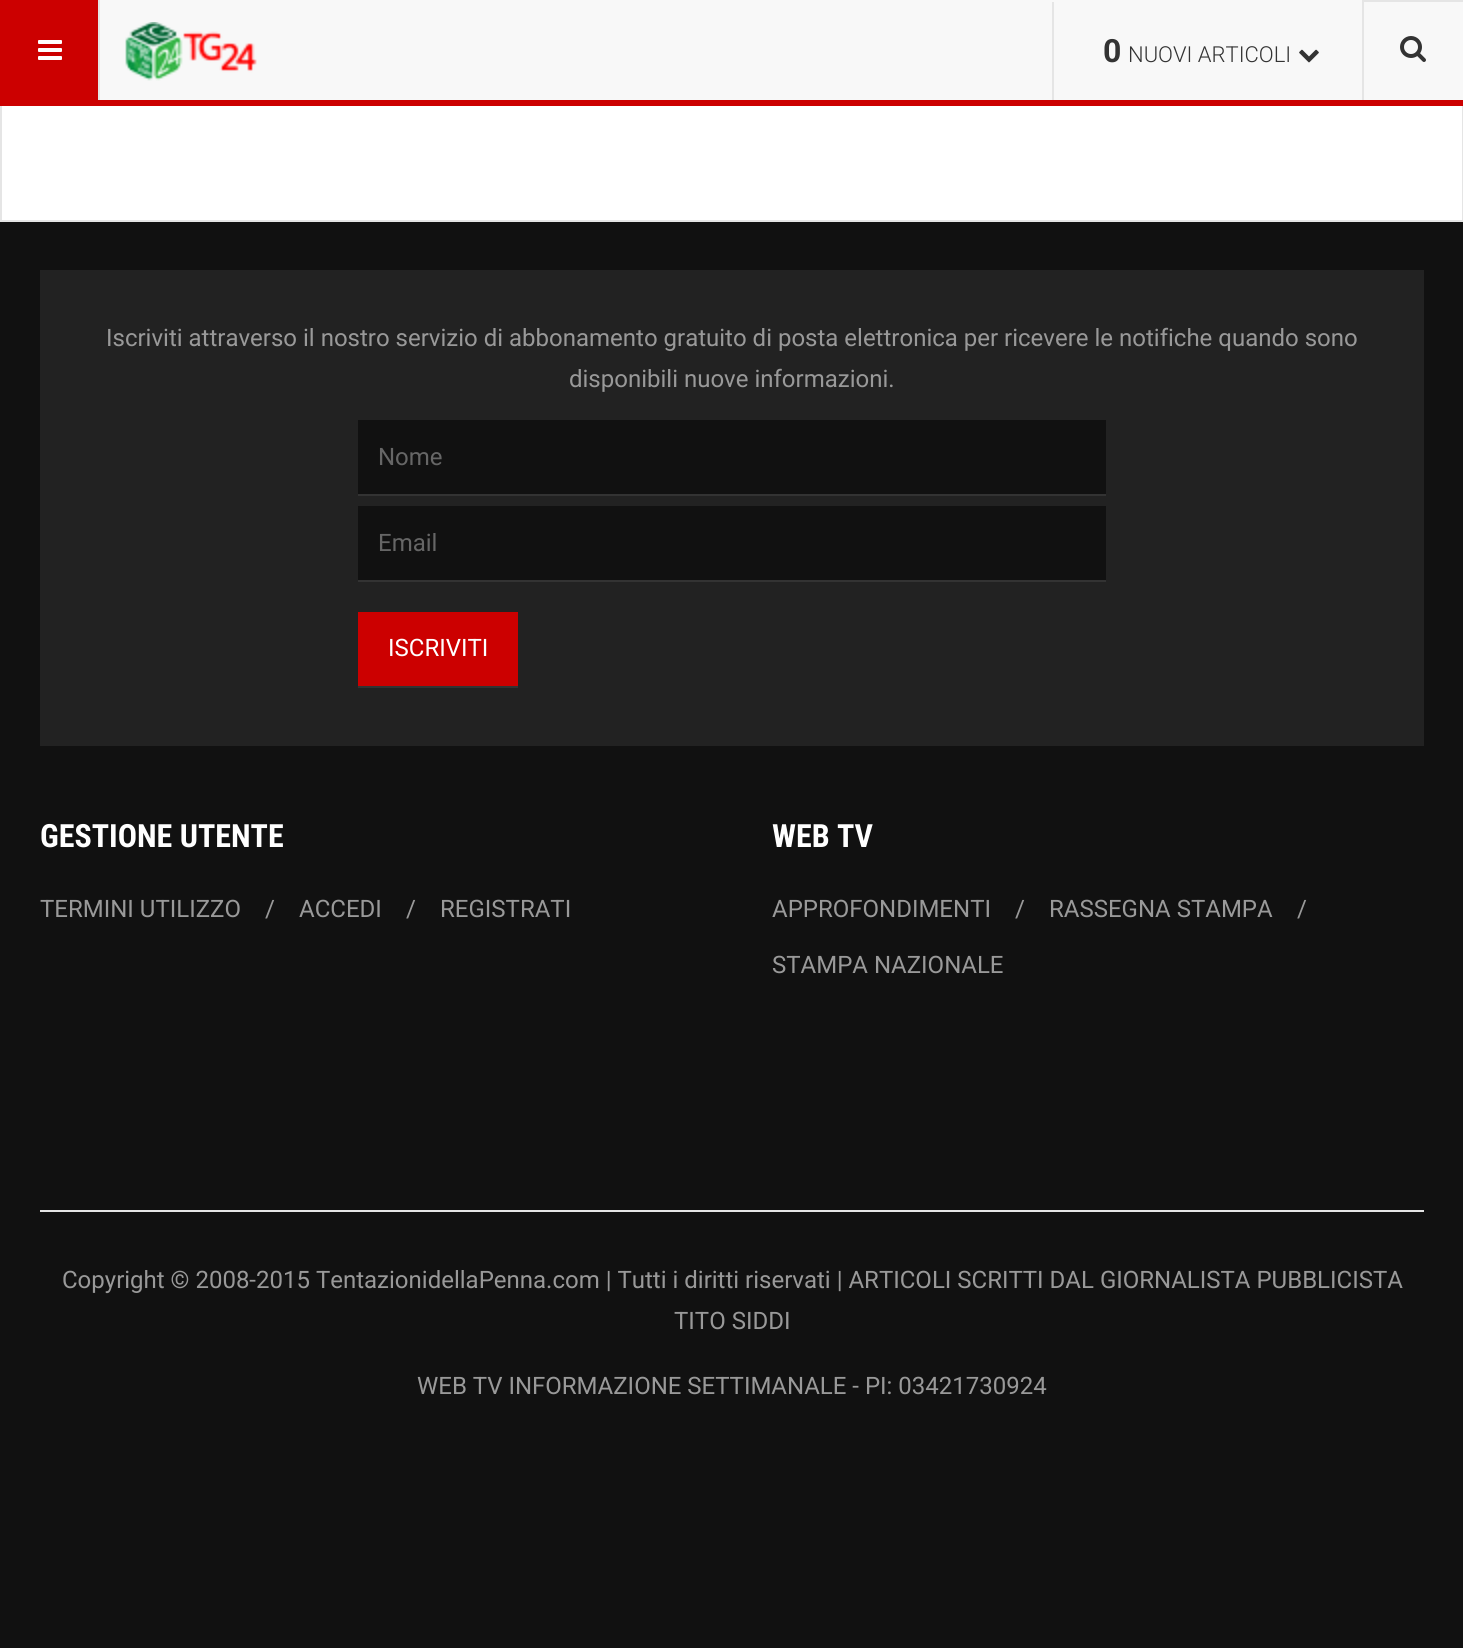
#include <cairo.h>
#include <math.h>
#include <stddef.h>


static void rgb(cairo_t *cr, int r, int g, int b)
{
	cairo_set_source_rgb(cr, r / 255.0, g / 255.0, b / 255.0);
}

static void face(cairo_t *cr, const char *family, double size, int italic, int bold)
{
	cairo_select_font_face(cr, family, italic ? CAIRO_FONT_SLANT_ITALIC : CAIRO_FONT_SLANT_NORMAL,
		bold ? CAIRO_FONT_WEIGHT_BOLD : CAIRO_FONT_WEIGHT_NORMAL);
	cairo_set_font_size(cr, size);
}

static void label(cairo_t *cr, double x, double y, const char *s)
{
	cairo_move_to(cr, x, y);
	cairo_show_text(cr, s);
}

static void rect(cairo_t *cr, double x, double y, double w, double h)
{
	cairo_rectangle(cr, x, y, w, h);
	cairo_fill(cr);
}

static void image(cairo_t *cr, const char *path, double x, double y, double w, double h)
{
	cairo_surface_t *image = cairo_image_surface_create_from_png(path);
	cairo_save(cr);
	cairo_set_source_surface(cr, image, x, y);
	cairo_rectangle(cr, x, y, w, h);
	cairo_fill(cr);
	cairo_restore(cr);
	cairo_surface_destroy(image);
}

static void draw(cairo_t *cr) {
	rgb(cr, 255, 255, 255);
	cairo_paint(cr);
	cairo_rectangle(cr, 1, -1, 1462, 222);
	rgb(cr, 229, 229, 229);
	cairo_stroke(cr);
	rgb(cr, 248, 248, 248);
	rect(cr, 100, 0, 1363, 100);
	rgb(cr, 204, 0, 0);
	rect(cr, 0, 100, 1463, 6);
	rect(cr, 0, 0, 98, 100);
	rgb(cr, 229, 229, 229);
	rect(cr, 98, 0, 2, 100);
	image(cr, "image0.png", 38, 40, 24, 20);
	image(cr, "image1.png", 125, 22, 132, 59);
	rect(cr, 1052, 2, 2, 98);
	face(cr, "Roboto", 32, 0, 1);
	rgb(cr, 51, 51, 51);
	label(cr, 1103, 62, "0");
	face(cr, "Roboto Light", 22, 0, 0);
	label(cr, 1128, 62, "NUOVI ARTICOLI");
	image(cr, "image2.png", 1299, 49, 20, 14);
	rgb(cr, 229, 229, 229);
	rect(cr, 1364, 0, 99, 2);
	rect(cr, 1362, 0, 2, 100);
	image(cr, "image3.png", 1400, 36, 26, 26);
	rgb(cr, 17, 17, 17);
	rect(cr, 0, 222, 1463, 1426);
	rgb(cr, 34, 34, 34);
	rect(cr, 40, 270, 1384, 476);
	face(cr, "Roboto", 24, 0, 0);
	rgb(cr, 153, 153, 153);
	label(cr, 106, 346, "Iscriviti attraverso il nostro servizio di abbonamento gratuito di posta elettronica per ricevere le notifiche quando sono");
	label(cr, 569, 387, "disponibili nuove informazioni.");
	rgb(cr, 17, 17, 17);
	rect(cr, 358, 420, 748, 74);
	rgb(cr, 51, 51, 51);
	rect(cr, 358, 494, 748, 2);
	rgb(cr, 102, 102, 102);
	label(cr, 378, 465, "Nome");
	rgb(cr, 17, 17, 17);
	rect(cr, 358, 506, 748, 74);
	rgb(cr, 51, 51, 51);
	rect(cr, 358, 580, 748, 2);
	rgb(cr, 102, 102, 102);
	label(cr, 378, 551, "Email");
	rgb(cr, 204, 0, 0);
	rect(cr, 358, 612, 160, 74);
	rgb(cr, 51, 51, 51);
	rect(cr, 358, 686, 160, 2);
	rgb(cr, 255, 255, 255);
	label(cr, 388, 656, "ISCRIVITI");
	face(cr, "Roboto Condensed", 32, 0, 1);
	label(cr, 40, 847, "GESTIONE UTENTE");
	face(cr, "Roboto", 24, 0, 0);
	rgb(cr, 153, 153, 153);
	label(cr, 40, 917, "TERMINI UTILIZZO");
	label(cr, 265, 917, "/");
	label(cr, 299, 917, "ACCEDI");
	label(cr, 406, 917, "/");
	label(cr, 440, 917, "REGISTRATI");
	face(cr, "Roboto Condensed", 32, 0, 1);
	rgb(cr, 255, 255, 255);
	label(cr, 772, 847, "WEB TV");
	face(cr, "Roboto", 24, 0, 0);
	rgb(cr, 153, 153, 153);
	label(cr, 772, 917, "APPROFONDIMENTI");
	label(cr, 1015, 917, "/");
	label(cr, 1049, 917, "RASSEGNA STAMPA");
	label(cr, 1297, 917, "/");
	label(cr, 772, 973, "STAMPA NAZIONALE");
	rgb(cr, 229, 229, 229);
	rect(cr, 40, 1210, 1384, 2);
	rgb(cr, 153, 153, 153);
	label(cr, 62, 1288, "Copyright © 2008-2015 TentazionidellaPenna.com | Tutti i diritti riservati | ARTICOLI SCRITTI DAL GIORNALISTA PUBBLICISTA");
	label(cr, 674, 1329, "TITO SIDDI");
	label(cr, 417, 1394, "WEB TV INFORMAZIONE SETTIMANALE - PI: 03421730924");
}

int main(void) {
	cairo_surface_t *surface = cairo_image_surface_create(CAIRO_FORMAT_RGB24, 1463, 1648);
	cairo_t *cr = cairo_create(surface);
	cairo_font_options_t *options = cairo_font_options_create();
	cairo_font_options_set_hint_metrics(options, CAIRO_HINT_METRICS_OFF);
	cairo_font_options_set_hint_style(options, CAIRO_HINT_STYLE_NONE);
	cairo_set_font_options(cr, options);
	cairo_set_miter_limit(cr, 4);
	draw(cr);
	cairo_surface_write_to_png(surface, "render.png");
	cairo_font_options_destroy(options);
	cairo_destroy(cr);
	cairo_surface_destroy(surface);
	return 0;
}
